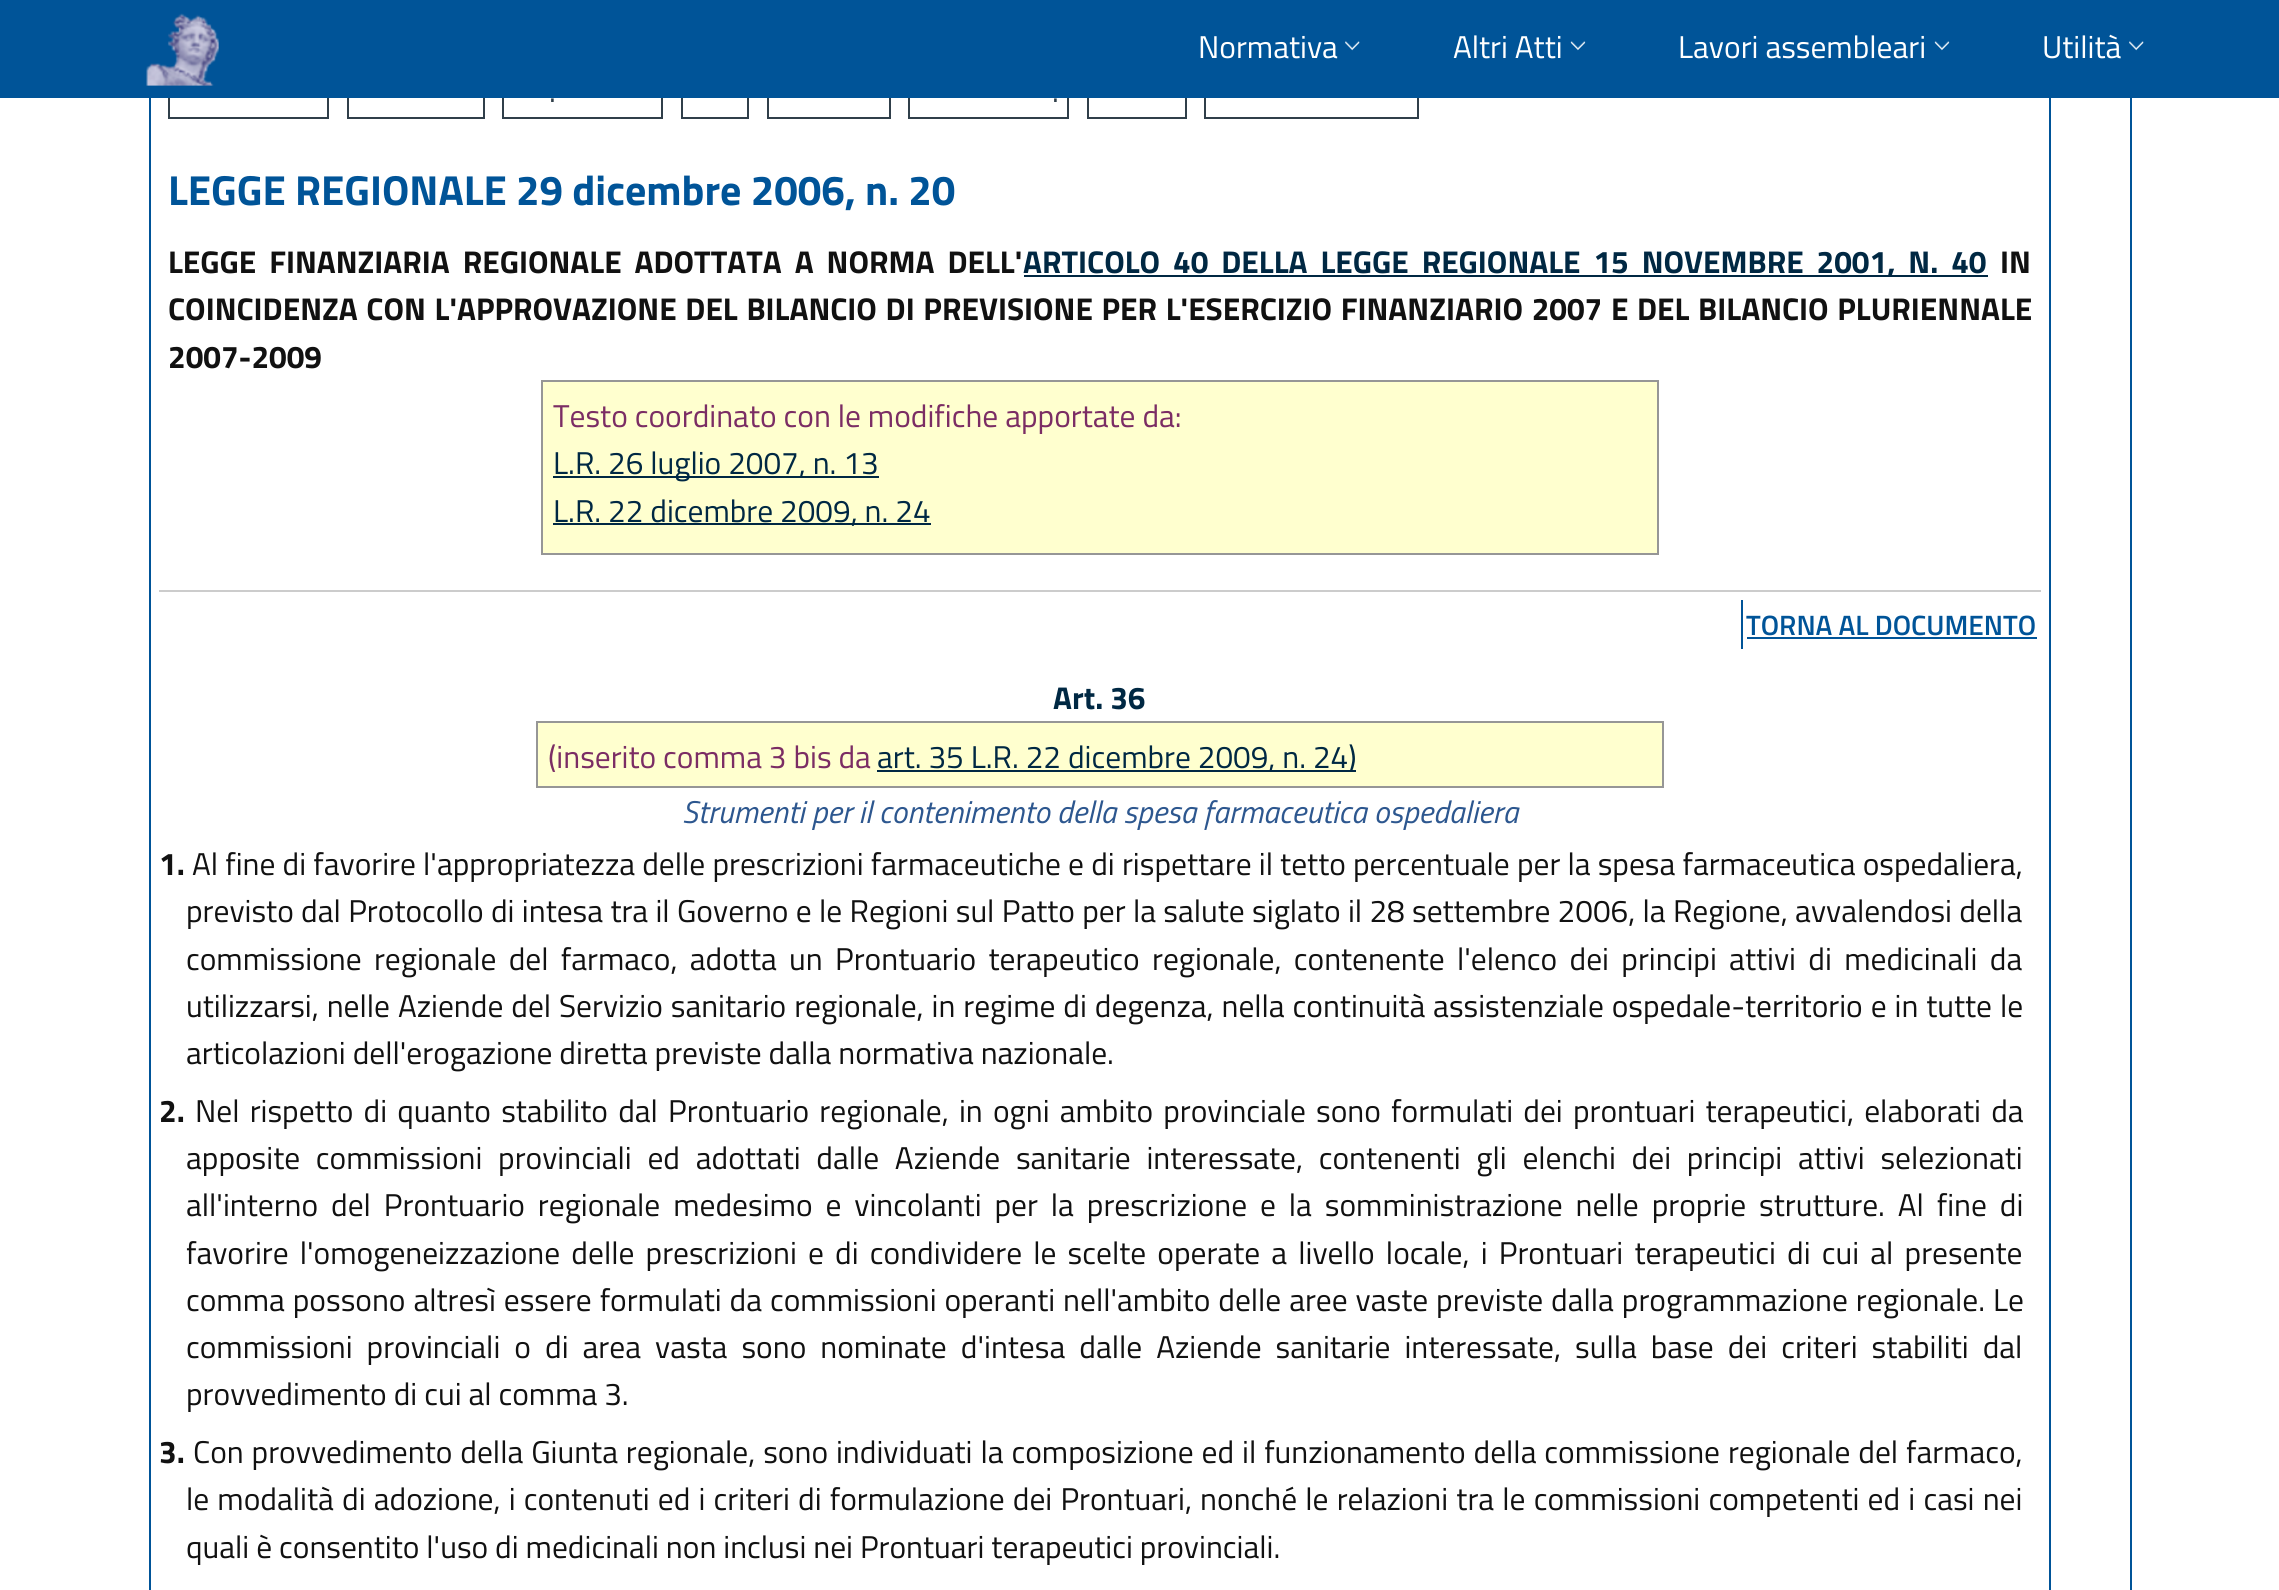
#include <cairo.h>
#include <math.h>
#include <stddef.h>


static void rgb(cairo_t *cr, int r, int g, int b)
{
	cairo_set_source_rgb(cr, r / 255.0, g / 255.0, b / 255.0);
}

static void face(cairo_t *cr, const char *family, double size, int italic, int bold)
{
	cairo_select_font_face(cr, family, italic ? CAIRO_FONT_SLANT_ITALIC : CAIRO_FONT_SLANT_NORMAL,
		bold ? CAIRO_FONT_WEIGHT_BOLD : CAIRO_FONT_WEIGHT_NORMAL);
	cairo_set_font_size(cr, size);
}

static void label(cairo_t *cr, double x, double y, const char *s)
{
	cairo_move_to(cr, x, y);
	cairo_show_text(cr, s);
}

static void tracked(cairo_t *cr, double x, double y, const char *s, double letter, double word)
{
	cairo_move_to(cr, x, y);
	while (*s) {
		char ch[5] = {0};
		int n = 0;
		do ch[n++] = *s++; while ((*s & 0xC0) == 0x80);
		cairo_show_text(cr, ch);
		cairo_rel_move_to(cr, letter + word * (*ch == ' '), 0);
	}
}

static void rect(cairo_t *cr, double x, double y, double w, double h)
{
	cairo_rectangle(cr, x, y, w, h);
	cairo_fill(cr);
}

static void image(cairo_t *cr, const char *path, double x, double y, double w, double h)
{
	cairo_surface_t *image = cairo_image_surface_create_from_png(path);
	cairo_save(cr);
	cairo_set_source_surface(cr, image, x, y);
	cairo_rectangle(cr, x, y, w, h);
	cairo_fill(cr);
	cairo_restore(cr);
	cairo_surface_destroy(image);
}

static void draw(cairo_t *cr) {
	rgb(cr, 255, 255, 255);
	cairo_paint(cr);
	cairo_rectangle(cr, 150, -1, 1981, 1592);
	rgb(cr, 0, 84, 152);
	cairo_stroke(cr);
	cairo_rectangle(cr, 169, 66, 159, 52);
	rgb(cr, 48, 63, 74);
	cairo_stroke(cr);
	cairo_rectangle(cr, 348, 66, 136, 52);
	cairo_stroke(cr);
	cairo_rectangle(cr, 503, 66, 159, 52);
	cairo_stroke(cr);
	cairo_rectangle(cr, 682, 66, 66, 52);
	cairo_stroke(cr);
	cairo_rectangle(cr, 768, 66, 122, 52);
	cairo_stroke(cr);
	cairo_rectangle(cr, 909, 66, 159, 52);
	cairo_stroke(cr);
	cairo_rectangle(cr, 1088, 66, 98, 52);
	cairo_stroke(cr);
	cairo_rectangle(cr, 1205, 66, 213, 52);
	cairo_stroke(cr);
	rgb(cr, 0, 84, 152);
	rect(cr, 0, 0, 2279, 98);
	image(cr, "image0.png", 146, 13, 73, 73);
	face(cr, "Titillium Web", 31.5, 0, 0);
	rgb(cr, 255, 255, 255);
	label(cr, 1198, 58, "Normativa");
	image(cr, "image1.png", 1345, 41, 15, 10);
	label(cr, 1453, 58, "Altri Atti");
	image(cr, "image2.png", 1570, 41, 16, 10);
	label(cr, 1678, 58, "Lavori assembleari");
	image(cr, "image2.png", 1934, 41, 16, 10);
	label(cr, 2042, 58, "Utilità");
	image(cr, "image1.png", 2129, 41, 15, 10);
	rgb(cr, 0, 84, 152);
	rect(cr, 2049, 98, 2, 1492);
	rgb(cr, 48, 63, 74);
	label(cr, 549, 102, ".");
	label(cr, 1052, 102, ".");
	face(cr, "Titillium Web", 42, 0, 1);
	rgb(cr, 0, 84, 152);
	label(cr, 168, 205, "LEGGE REGIONALE 29 dicembre 2006, n. 20");
	face(cr, "Titillium Web", 31.5, 0, 1);
	rgb(cr, 17, 17, 17);
	tracked(cr, 168, 273, "LEGGE FINANZIARIA REGIONALE ADOTTATA A NORMA DELL'", 0, 6);
	rgb(cr, 0, 40, 67);
	rect(cr, 1024, 275, 964, 2);
	tracked(cr, 1023, 273, "ARTICOLO 40 DELLA LEGGE REGIONALE 15 NOVEMBRE 2001, N. 40", 0, 6);
	rgb(cr, 17, 17, 17);
	label(cr, 2000, 273, "IN");
	tracked(cr, 168, 320, "COINCIDENZA CON L'APPROVAZIONE DEL BILANCIO DI PREVISIONE PER L'ESERCIZIO FINANZIARIO 2007 E DEL BILANCIO PLURIENNALE", 0, 1.75);
	label(cr, 168, 368, "2007-2009");
	rgb(cr, 255, 255, 207);
	cairo_rectangle(cr, 542, 381, 1116, 173);
	cairo_fill_preserve(cr);
	rgb(cr, 150, 150, 150);
	cairo_stroke(cr);
	face(cr, "Titillium Web", 31.5, 0, 0);
	rgb(cr, 123, 45, 100);
	label(cr, 553, 427, "Testo coordinato con le modifiche apportate da:");
	rgb(cr, 0, 40, 67);
	rect(cr, 553, 476, 326, 2);
	label(cr, 553, 474, "L.R. 26 luglio 2007, n. 13");
	rect(cr, 553, 523, 378, 2);
	label(cr, 553, 522, "L.R. 22 dicembre 2009, n. 24");
	rgb(cr, 204, 204, 204);
	rect(cr, 159, 590, 1882, 2);
	rgb(cr, 0, 84, 152);
	rect(cr, 1741, 600, 2, 49);
	face(cr, "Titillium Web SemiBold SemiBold", 28, 0, 0);
	label(cr, 1746, 635, "TORNA AL DOCUMENTO");
	rect(cr, 1747, 637, 290, 2);
	face(cr, "Titillium Web", 31.5, 0, 1);
	rgb(cr, 0, 40, 67);
	label(cr, 1053, 709, "Art. 36");
	rgb(cr, 255, 255, 207);
	cairo_rectangle(cr, 537, 722, 1126, 65);
	cairo_fill_preserve(cr);
	rgb(cr, 150, 150, 150);
	cairo_stroke(cr);
	face(cr, "Titillium Web", 31.5, 0, 0);
	rgb(cr, 123, 45, 100);
	label(cr, 548, 768, "(inserito comma 3 bis da");
	rgb(cr, 0, 40, 67);
	rect(cr, 877, 770, 479, 2);
	label(cr, 877, 768, "art. 35 L.R. 22 dicembre 2009, n. 24)");
	face(cr, "Titillium Web", 31.5, 1, 0);
	rgb(cr, 45, 87, 143);
	label(cr, 682, 823, "Strumenti per il contenimento della spesa farmaceutica ospedaliera");
	face(cr, "Titillium Web", 31.5, 0, 1);
	rgb(cr, 17, 17, 17);
	label(cr, 159, 875, "1.");
	face(cr, "Titillium Web", 31.5, 0, 0);
	tracked(cr, 192, 875, "Al fine di favorire l'appropriatezza delle prescrizioni farmaceutiche e di rispettare il tetto percentuale per la spesa farmaceutica ospedaliera,", 0, 0.25);
	tracked(cr, 186, 922, "previsto dal Protocollo di intesa tra il Governo e le Regioni sul Patto per la salute siglato il 28 settembre 2006, la Regione, avvalendosi della", 0, 0.4);
	tracked(cr, 186, 970, "commissione regionale del farmaco, adotta un Prontuario terapeutico regionale, contenente l'elenco dei principi attivi di medicinali da", 0, 5.4);
	tracked(cr, 186, 1017, "utilizzarsi, nelle Aziende del Servizio sanitario regionale, in regime di degenza, nella continuità assistenziale ospedale-territorio e in tutte le", 0, 1);
	label(cr, 186, 1064, "articolazioni dell'erogazione diretta previste dalla normativa nazionale.");
	face(cr, "Titillium Web", 31.5, 0, 1);
	label(cr, 159, 1122, "2.");
	face(cr, "Titillium Web", 31.5, 0, 0);
	tracked(cr, 195, 1122, "Nel rispetto di quanto stabilito dal Prontuario regionale, in ogni ambito provinciale sono formulati dei prontuari terapeutici, elaborati da", 0, 3.25);
	tracked(cr, 186, 1169, "apposite commissioni provinciali ed adottati dalle Aziende sanitarie interessate, contenenti gli elenchi dei principi attivi selezionati", 0, 8.75);
	tracked(cr, 186, 1216, "all'interno del Prontuario regionale medesimo e vincolanti per la prescrizione e la somministrazione nelle proprie strutture. Al fine di", 0, 6);
	tracked(cr, 186, 1264, "favorire l'omogeneizzazione delle prescrizioni e di condividere le scelte operate a livello locale, i Prontuari terapeutici di cui al presente", 0, 4.25);
	tracked(cr, 186, 1311, "comma possono altresì essere formulati da commissioni operanti nell'ambito delle aree vaste previste dalla programmazione regionale. Le", 0, 1);
	tracked(cr, 186, 1358, "commissioni provinciali o di area vasta sono nominate d'intesa dalle Aziende sanitarie interessate, sulla base dei criteri stabiliti dal", 0, 7.1);
	label(cr, 186, 1405, "provvedimento di cui al comma 3.");
	face(cr, "Titillium Web", 31.5, 0, 1);
	label(cr, 159, 1463, "3.");
	face(cr, "Titillium Web", 31.5, 0, 0);
	tracked(cr, 193, 1463, "Con provvedimento della Giunta regionale, sono individuati la composizione ed il funzionamento della commissione regionale del farmaco,", 0, 1);
	tracked(cr, 186, 1510, "le modalità di adozione, i contenuti ed i criteri di formulazione dei Prontuari, nonché le relazioni tra le commissioni competenti ed i casi nei", 0, 1.25);
	label(cr, 186, 1558, "quali è consentito l'uso di medicinali non inclusi nei Prontuari terapeutici provinciali.");
}

int main(void) {
	cairo_surface_t *surface = cairo_image_surface_create(CAIRO_FORMAT_RGB24, 2279, 1590);
	cairo_t *cr = cairo_create(surface);
	cairo_font_options_t *options = cairo_font_options_create();
	cairo_font_options_set_hint_metrics(options, CAIRO_HINT_METRICS_OFF);
	cairo_font_options_set_hint_style(options, CAIRO_HINT_STYLE_NONE);
	cairo_set_font_options(cr, options);
	cairo_set_miter_limit(cr, 4);
	draw(cr);
	cairo_surface_write_to_png(surface, "render.png");
	cairo_font_options_destroy(options);
	cairo_destroy(cr);
	cairo_surface_destroy(surface);
	return 0;
}
